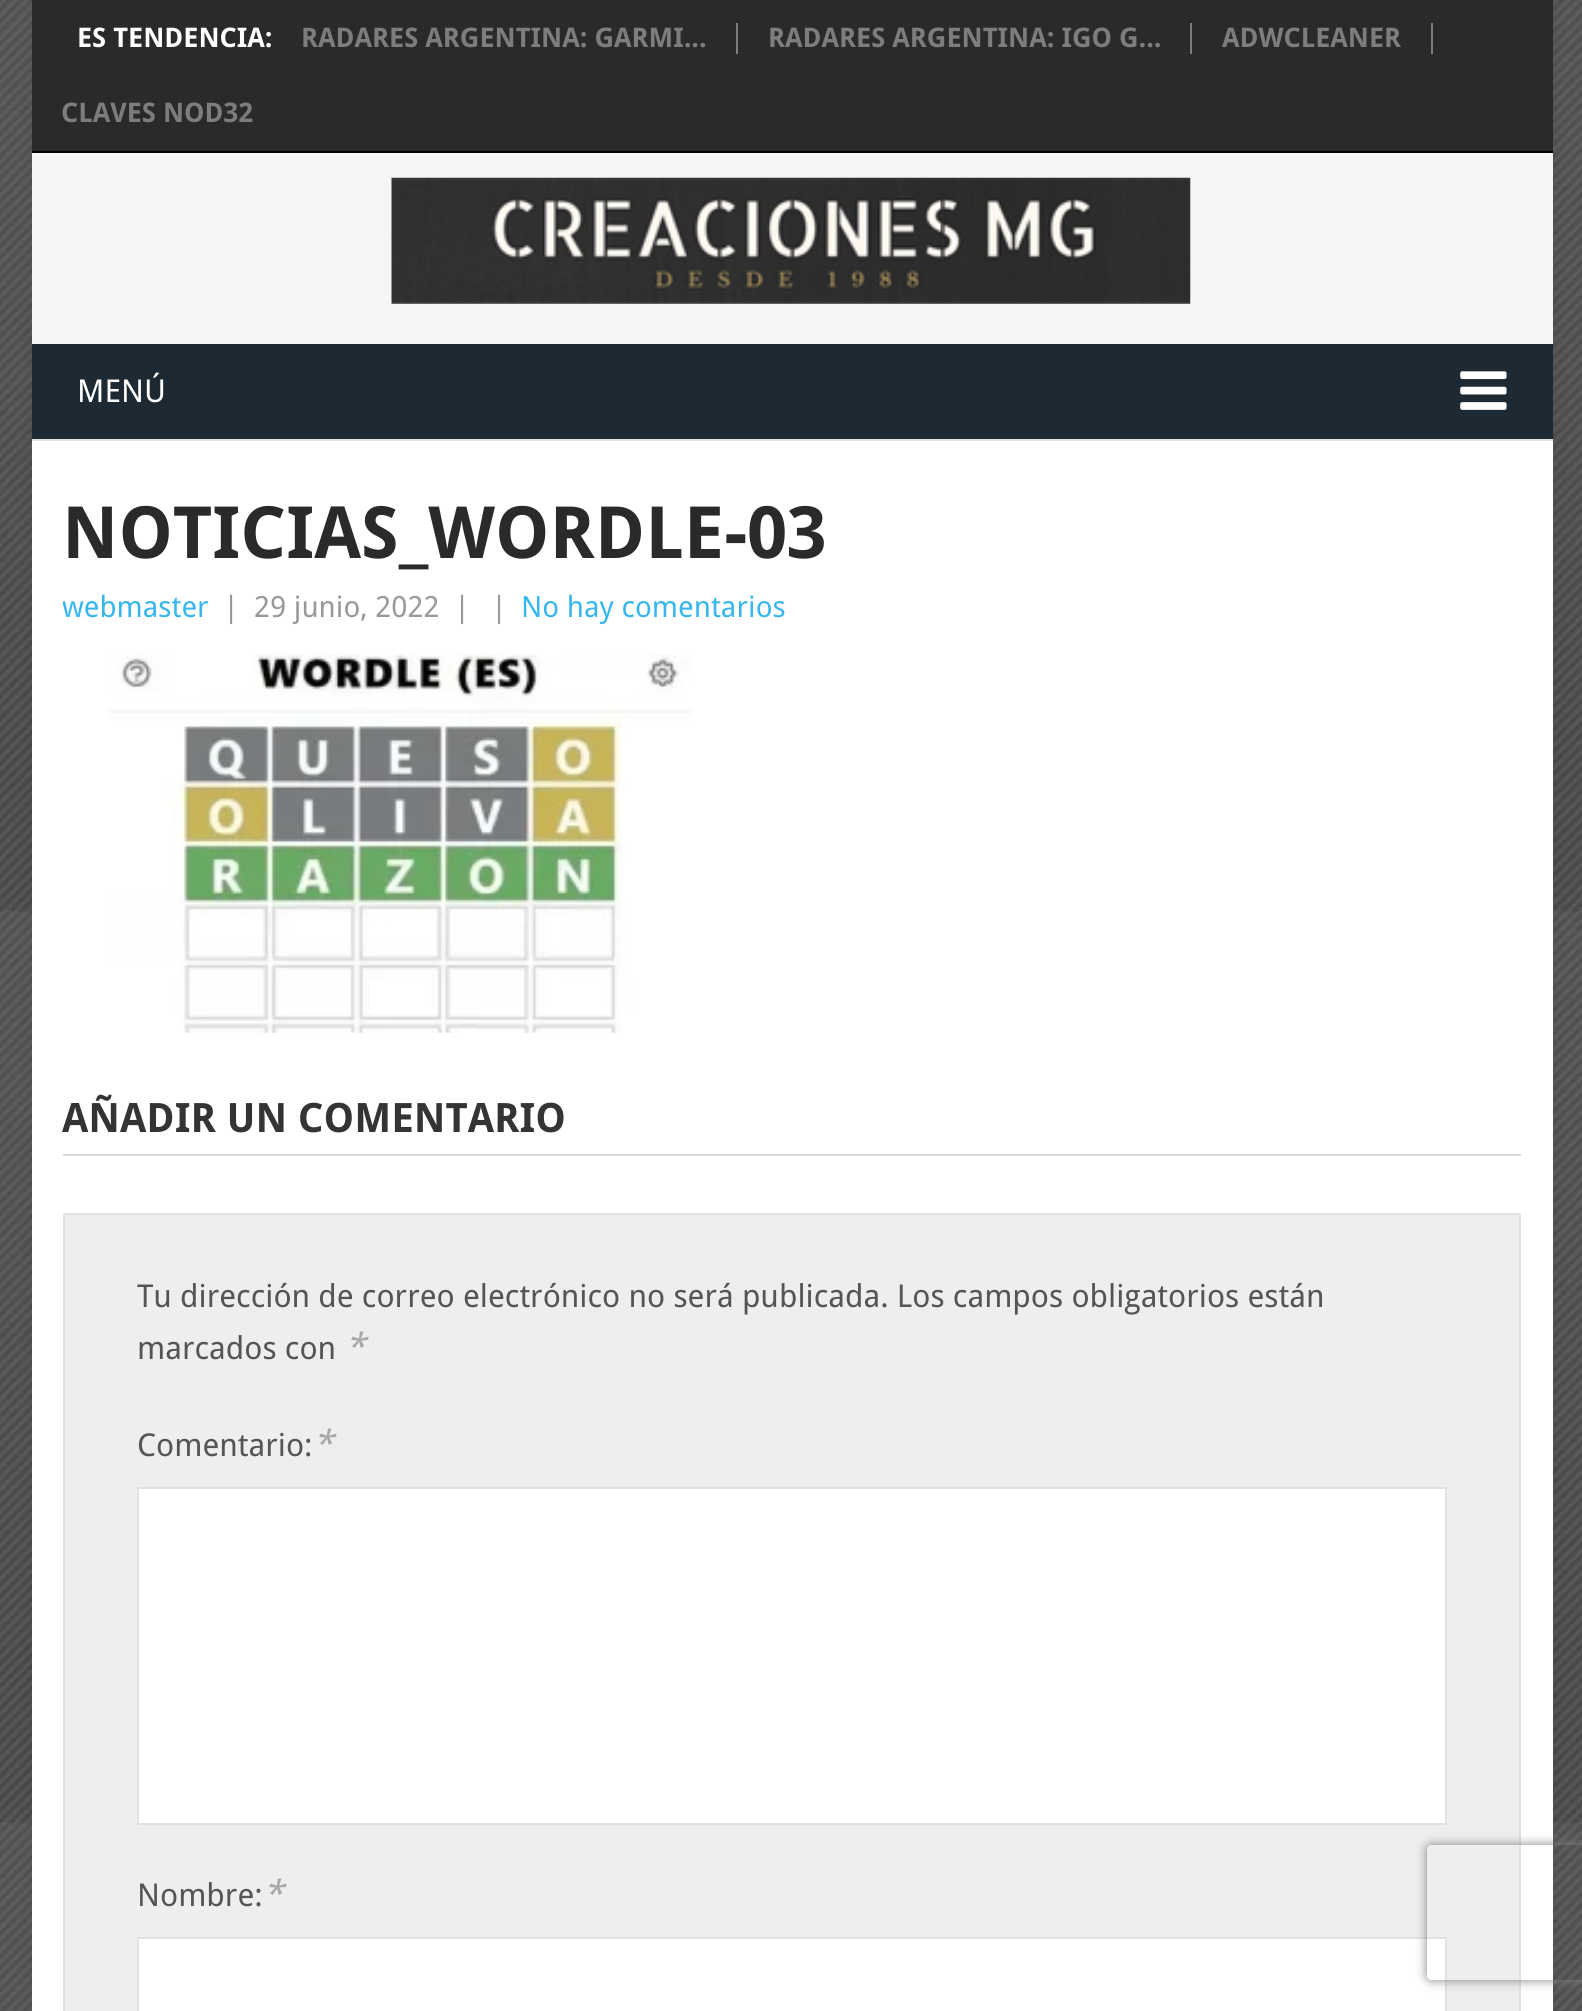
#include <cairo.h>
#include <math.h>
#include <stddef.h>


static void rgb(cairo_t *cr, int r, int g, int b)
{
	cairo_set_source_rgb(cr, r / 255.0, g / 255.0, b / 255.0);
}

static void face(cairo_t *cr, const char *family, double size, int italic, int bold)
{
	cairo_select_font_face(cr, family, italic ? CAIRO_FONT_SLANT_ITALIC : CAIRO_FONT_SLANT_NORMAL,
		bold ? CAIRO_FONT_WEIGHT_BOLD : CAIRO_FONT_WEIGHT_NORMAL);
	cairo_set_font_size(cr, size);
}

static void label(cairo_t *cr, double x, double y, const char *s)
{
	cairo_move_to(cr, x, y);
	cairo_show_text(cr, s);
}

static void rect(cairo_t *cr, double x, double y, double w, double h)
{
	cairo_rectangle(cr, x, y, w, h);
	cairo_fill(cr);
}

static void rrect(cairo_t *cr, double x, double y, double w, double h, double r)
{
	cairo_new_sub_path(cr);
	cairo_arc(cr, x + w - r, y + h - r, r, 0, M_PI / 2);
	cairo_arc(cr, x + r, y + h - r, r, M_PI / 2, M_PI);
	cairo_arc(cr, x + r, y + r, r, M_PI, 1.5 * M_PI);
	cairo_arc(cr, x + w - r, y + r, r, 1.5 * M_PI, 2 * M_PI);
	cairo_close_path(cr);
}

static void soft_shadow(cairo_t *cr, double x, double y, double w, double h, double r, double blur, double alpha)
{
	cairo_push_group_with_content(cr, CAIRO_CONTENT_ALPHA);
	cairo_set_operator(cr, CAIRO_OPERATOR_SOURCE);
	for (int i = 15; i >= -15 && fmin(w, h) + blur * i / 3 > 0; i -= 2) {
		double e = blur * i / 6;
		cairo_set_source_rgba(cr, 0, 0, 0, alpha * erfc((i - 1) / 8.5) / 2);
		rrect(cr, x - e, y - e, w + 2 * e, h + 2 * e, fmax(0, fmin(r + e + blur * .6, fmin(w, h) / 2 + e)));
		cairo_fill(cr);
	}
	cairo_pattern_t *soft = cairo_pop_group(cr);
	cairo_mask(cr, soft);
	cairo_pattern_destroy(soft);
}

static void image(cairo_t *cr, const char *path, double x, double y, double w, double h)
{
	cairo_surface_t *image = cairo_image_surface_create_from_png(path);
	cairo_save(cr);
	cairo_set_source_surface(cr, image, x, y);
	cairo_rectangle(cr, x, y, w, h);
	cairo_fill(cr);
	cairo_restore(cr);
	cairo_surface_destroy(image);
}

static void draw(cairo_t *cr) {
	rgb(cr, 255, 255, 255);
	cairo_paint(cr);
	image(cr, "image0.png", 0, 0, 1582, 2011);
	rgb(cr, 50, 50, 50);
	soft_shadow(cr, 32, 0, 1521, 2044, 0, 11, 0.17);
	rgb(cr, 255, 255, 255);
	rect(cr, 32, 441, 1521, 1570);
	rgb(cr, 42, 42, 42);
	rect(cr, 32, 0, 1521, 151);
	rgb(cr, 0, 0, 0);
	rect(cr, 32, 151, 1521, 2);
	face(cr, "Droid Sans", 27, 0, 1);
	rgb(cr, 255, 255, 255);
	label(cr, 77, 47, "ES TENDENCIA:");
	rgb(cr, 125, 125, 125);
	rect(cr, 736, 23, 2, 31);
	label(cr, 301, 47, "RADARES ARGENTINA: GARMI...");
	rect(cr, 1190, 23, 2, 31);
	label(cr, 768, 47, "RADARES ARGENTINA: IGO G...");
	rect(cr, 1431, 23, 2, 31);
	label(cr, 1222, 47, "ADWCLEANER");
	label(cr, 61, 122, "CLAVES NOD32");
	rgb(cr, 245, 245, 245);
	rect(cr, 32, 153, 1521, 191);
	image(cr, "image1.png", 391, 177, 800, 127);
	rgb(cr, 29, 41, 51);
	rect(cr, 32, 344, 1521, 95);
	face(cr, "Droid Sans", 31.5, 0, 0);
	rgb(cr, 255, 255, 255);
	label(cr, 77, 402, "MENÚ");
	image(cr, "image2.png", 1460, 371, 47, 39);
	rgb(cr, 226, 226, 226);
	rect(cr, 32, 439, 1521, 2);
	face(cr, "Droid Sans", 72, 0, 1);
	rgb(cr, 42, 42, 42);
	label(cr, 62, 558, "NOTICIAS_WORDLE-03");
	cairo_save(cr);
	cairo_rectangle(cr, 63, 495, 1458, 137);
	cairo_clip(cr);
	face(cr, "Droid Sans", 29.25, 0, 0);
	rgb(cr, 56, 183, 238);
	label(cr, 62, 617, "webmaster");
	cairo_restore(cr);
	face(cr, "Droid Sans", 29.25, 0, 0);
	rgb(cr, 153, 153, 153);
	label(cr, 223, 617, "|");
	label(cr, 254, 617, "29 junio, 2022");
	label(cr, 454, 617, "|");
	label(cr, 491, 617, "|");
	rgb(cr, 56, 183, 238);
	label(cr, 521, 617, "No hay comentarios");
	image(cr, "image3.png", 108, 654, 585, 379);
	rgb(cr, 216, 215, 215);
	rect(cr, 63, 1154, 1458, 2);
	face(cr, "Droid Sans", 40.5, 0, 1);
	rgb(cr, 52, 52, 52);
	label(cr, 62, 1132, "AÑADIR UN COMENTARIO");
	rgb(cr, 238, 238, 238);
	cairo_rectangle(cr, 64, 1214, 1456, 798);
	cairo_fill_preserve(cr);
	rgb(cr, 225, 225, 225);
	cairo_stroke(cr);
	face(cr, "Droid Sans", 31.5, 0, 0);
	rgb(cr, 85, 85, 85);
	label(cr, 137, 1307, "Tu dirección de correo electrónico no será publicada. Los campos obligatorios están");
	label(cr, 137, 1359, "marcados con");
	face(cr, "Droid Sans", 36, 1, 0);
	rgb(cr, 168, 168, 168);
	label(cr, 345, 1359, "*");
	face(cr, "Droid Sans", 31.5, 0, 0);
	rgb(cr, 85, 85, 85);
	label(cr, 137, 1456, "Comentario:");
	face(cr, "Droid Sans", 36, 1, 0);
	rgb(cr, 168, 168, 168);
	label(cr, 313, 1456, "*");
	rgb(cr, 255, 255, 255);
	cairo_rectangle(cr, 138, 1488, 1308, 336);
	cairo_fill_preserve(cr);
	rgb(cr, 225, 225, 225);
	cairo_stroke(cr);
	face(cr, "Droid Sans", 31.5, 0, 0);
	rgb(cr, 85, 85, 85);
	label(cr, 137, 1906, "Nombre:");
	face(cr, "Droid Sans", 36, 1, 0);
	rgb(cr, 168, 168, 168);
	label(cr, 263, 1906, "*");
	rgb(cr, 255, 255, 255);
	cairo_rectangle(cr, 138, 1938, 1308, 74);
	cairo_fill_preserve(cr);
	rgb(cr, 225, 225, 225);
	cairo_stroke(cr);
	cairo_save(cr);
	cairo_set_fill_rule(cr, CAIRO_FILL_RULE_EVEN_ODD);
	cairo_new_path(cr);
	cairo_move_to(cr, 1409, 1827);
	cairo_line_to(cr, 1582, 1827);
	cairo_line_to(cr, 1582, 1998);
	cairo_line_to(cr, 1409, 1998);
	cairo_close_path(cr);
	cairo_move_to(cr, 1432, 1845);
	cairo_line_to(cr, 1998, 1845);
	cairo_curve_to(cr, 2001, 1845, 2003, 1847, 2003, 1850);
	cairo_line_to(cr, 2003, 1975);
	cairo_curve_to(cr, 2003, 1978, 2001, 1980, 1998, 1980);
	cairo_line_to(cr, 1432, 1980);
	cairo_curve_to(cr, 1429, 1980, 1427, 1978, 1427, 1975);
	cairo_line_to(cr, 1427, 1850);
	cairo_curve_to(cr, 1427, 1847, 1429, 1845, 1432, 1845);
	cairo_close_path(cr);
	cairo_clip(cr);
	rgb(cr, 128, 128, 128);
	soft_shadow(cr, 1427, 1845, 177, 135, 5, 5.5, 1);
	cairo_restore(cr);
}

int main(void) {
	cairo_surface_t *surface = cairo_image_surface_create(CAIRO_FORMAT_RGB24, 1582, 2011);
	cairo_t *cr = cairo_create(surface);
	cairo_font_options_t *options = cairo_font_options_create();
	cairo_font_options_set_hint_metrics(options, CAIRO_HINT_METRICS_OFF);
	cairo_font_options_set_hint_style(options, CAIRO_HINT_STYLE_NONE);
	cairo_set_font_options(cr, options);
	cairo_set_miter_limit(cr, 4);
	draw(cr);
	cairo_surface_write_to_png(surface, "render.png");
	cairo_font_options_destroy(options);
	cairo_destroy(cr);
	cairo_surface_destroy(surface);
	return 0;
}
